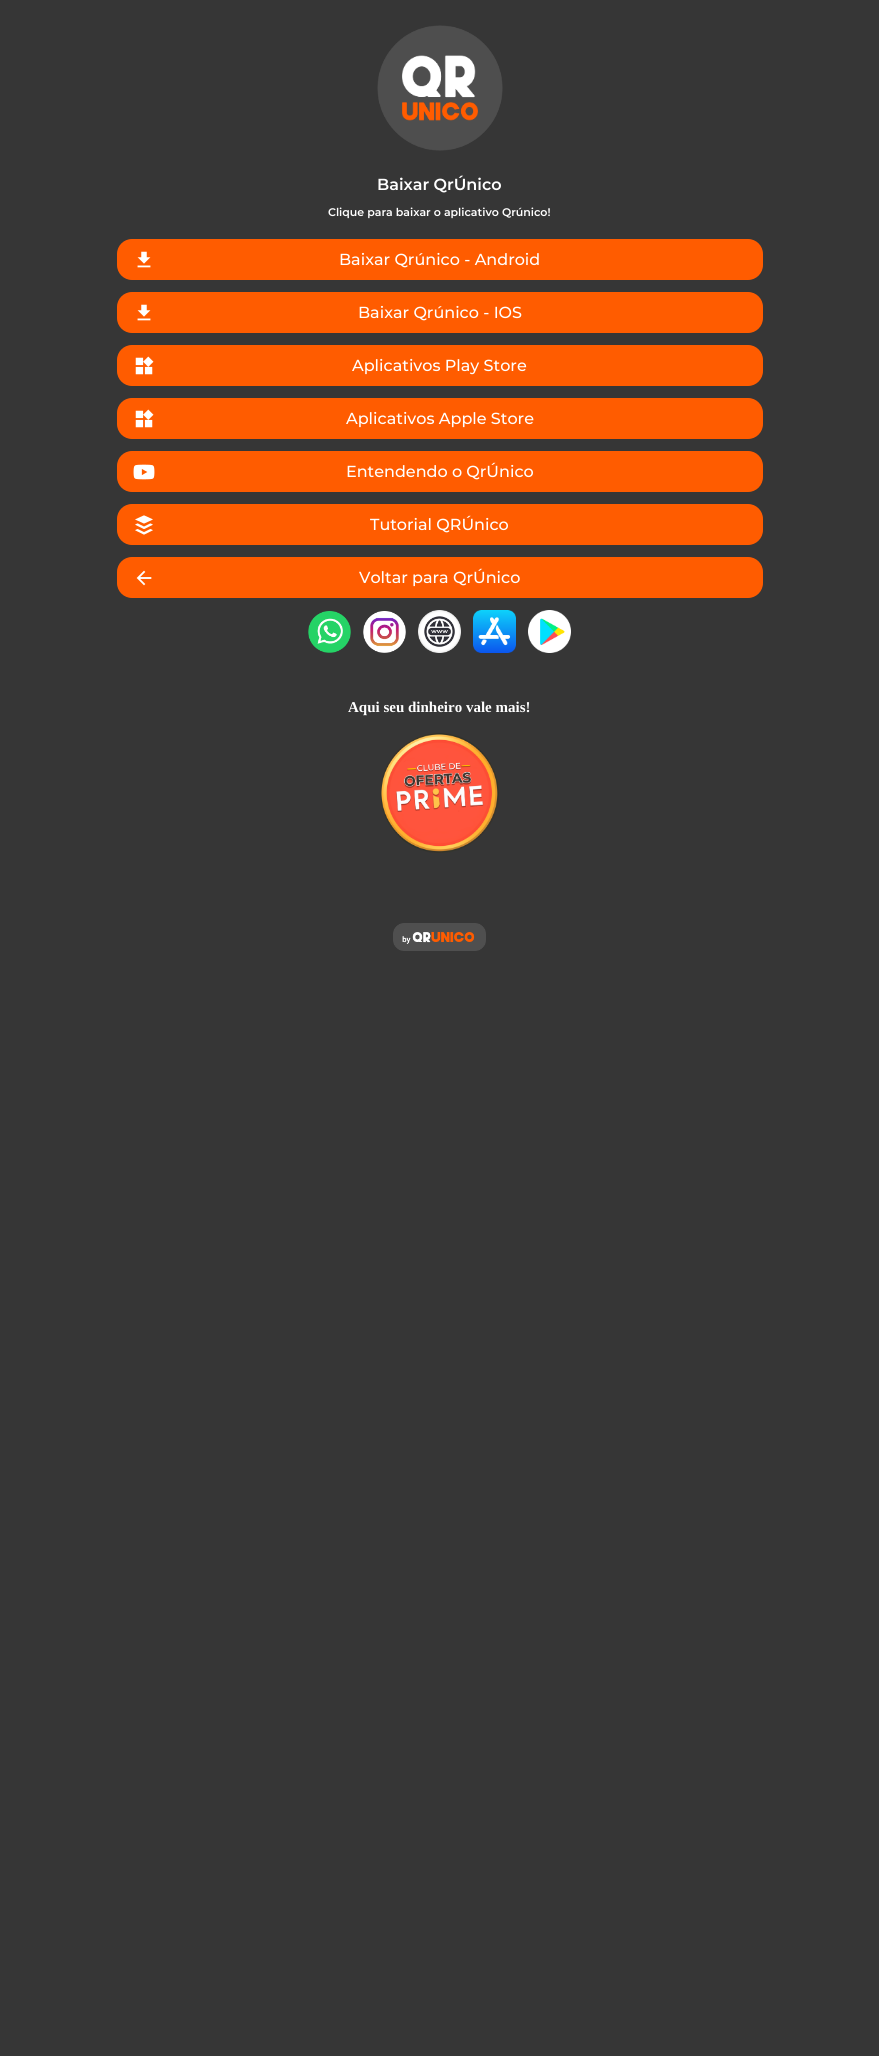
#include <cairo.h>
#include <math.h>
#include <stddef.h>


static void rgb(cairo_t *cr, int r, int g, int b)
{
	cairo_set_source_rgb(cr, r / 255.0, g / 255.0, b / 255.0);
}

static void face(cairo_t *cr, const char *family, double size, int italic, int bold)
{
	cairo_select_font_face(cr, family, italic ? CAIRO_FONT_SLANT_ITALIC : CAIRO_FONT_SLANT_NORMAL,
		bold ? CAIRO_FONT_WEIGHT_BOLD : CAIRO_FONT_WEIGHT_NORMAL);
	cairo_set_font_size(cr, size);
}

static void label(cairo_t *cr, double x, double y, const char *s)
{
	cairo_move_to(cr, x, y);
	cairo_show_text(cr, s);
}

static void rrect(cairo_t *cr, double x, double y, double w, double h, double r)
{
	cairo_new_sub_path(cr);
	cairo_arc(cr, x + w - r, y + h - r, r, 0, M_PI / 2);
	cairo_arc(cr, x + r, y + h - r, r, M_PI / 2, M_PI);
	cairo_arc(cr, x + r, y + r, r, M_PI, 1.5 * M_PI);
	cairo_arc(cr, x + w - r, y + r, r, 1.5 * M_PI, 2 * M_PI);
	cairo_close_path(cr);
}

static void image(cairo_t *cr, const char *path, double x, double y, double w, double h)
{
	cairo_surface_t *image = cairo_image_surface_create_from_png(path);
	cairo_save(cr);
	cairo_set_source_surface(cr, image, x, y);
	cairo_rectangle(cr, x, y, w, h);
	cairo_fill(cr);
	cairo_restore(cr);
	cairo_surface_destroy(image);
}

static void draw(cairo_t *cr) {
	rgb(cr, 54, 54, 54);
	cairo_paint(cr);
	image(cr, "image0.png", 377, 25, 126, 126);
	face(cr, "Montserrat SemiBold", 16, 0, 0);
	rgb(cr, 255, 255, 255);
	label(cr, 377, 190, "Baixar QrÚnico");
	face(cr, "Montserrat SemiBold", 11, 0, 0);
	label(cr, 328, 216, "Clique para baixar o aplicativo Qrúnico!");
	rgb(cr, 255, 92, 0);
	rrect(cr, 117, 239, 646, 41, 15);
	cairo_fill(cr);
	image(cr, "image1.png", 137, 251, 14, 17);
	face(cr, "Montserrat Medium", 16, 0, 0);
	rgb(cr, 255, 255, 255);
	label(cr, 339, 265, "Baixar Qrúnico - Android");
	rgb(cr, 255, 92, 0);
	rrect(cr, 117, 292, 646, 41, 15);
	cairo_fill(cr);
	image(cr, "image1.png", 137, 304, 14, 17);
	rgb(cr, 255, 255, 255);
	label(cr, 358, 318, "Baixar Qrúnico - IOS");
	rgb(cr, 255, 92, 0);
	rrect(cr, 117, 345, 646, 41, 15);
	cairo_fill(cr);
	image(cr, "image2.png", 135, 356, 19, 19);
	rgb(cr, 255, 255, 255);
	label(cr, 352, 371, "Aplicativos Play Store");
	rgb(cr, 255, 92, 0);
	rrect(cr, 117, 398, 646, 41, 15);
	cairo_fill(cr);
	image(cr, "image2.png", 135, 409, 19, 19);
	rgb(cr, 255, 255, 255);
	label(cr, 346, 424, "Aplicativos Apple Store");
	rgb(cr, 255, 92, 0);
	rrect(cr, 117, 451, 646, 41, 15);
	cairo_fill(cr);
	image(cr, "image3.png", 133, 464, 22, 16);
	rgb(cr, 255, 255, 255);
	label(cr, 346, 477, "Entendendo o QrÚnico");
	rgb(cr, 255, 92, 0);
	rrect(cr, 117, 504, 646, 41, 15);
	cairo_fill(cr);
	image(cr, "image4.png", 135, 515, 18, 20);
	rgb(cr, 255, 255, 255);
	label(cr, 370, 530, "Tutorial QRÚnico");
	rgb(cr, 255, 92, 0);
	rrect(cr, 117, 557, 646, 41, 15);
	cairo_fill(cr);
	image(cr, "image5.png", 136, 570, 16, 16);
	rgb(cr, 255, 255, 255);
	label(cr, 359, 583, "Voltar para QrÚnico");
	image(cr, "image6.png", 308, 611, 43, 42);
	image(cr, "image7.png", 363, 611, 43, 42);
	image(cr, "image8.png", 418, 610, 43, 43);
	image(cr, "image9.png", 473, 610, 43, 43);
	image(cr, "image10.png", 528, 610, 43, 43);
	face(cr, "Liberation Serif", 15, 0, 1);
	label(cr, 348, 712, "Aqui seu dinheiro vale mais!");
	image(cr, "image11.png", 380, 733, 119, 120);
	image(cr, "image12.png", 393, 923, 93, 28);
}

int main(void) {
	cairo_surface_t *surface = cairo_image_surface_create(CAIRO_FORMAT_RGB24, 879, 2056);
	cairo_t *cr = cairo_create(surface);
	cairo_font_options_t *options = cairo_font_options_create();
	cairo_font_options_set_hint_metrics(options, CAIRO_HINT_METRICS_OFF);
	cairo_font_options_set_hint_style(options, CAIRO_HINT_STYLE_NONE);
	cairo_set_font_options(cr, options);
	cairo_set_miter_limit(cr, 4);
	draw(cr);
	cairo_surface_write_to_png(surface, "render.png");
	cairo_font_options_destroy(options);
	cairo_destroy(cr);
	cairo_surface_destroy(surface);
	return 0;
}
